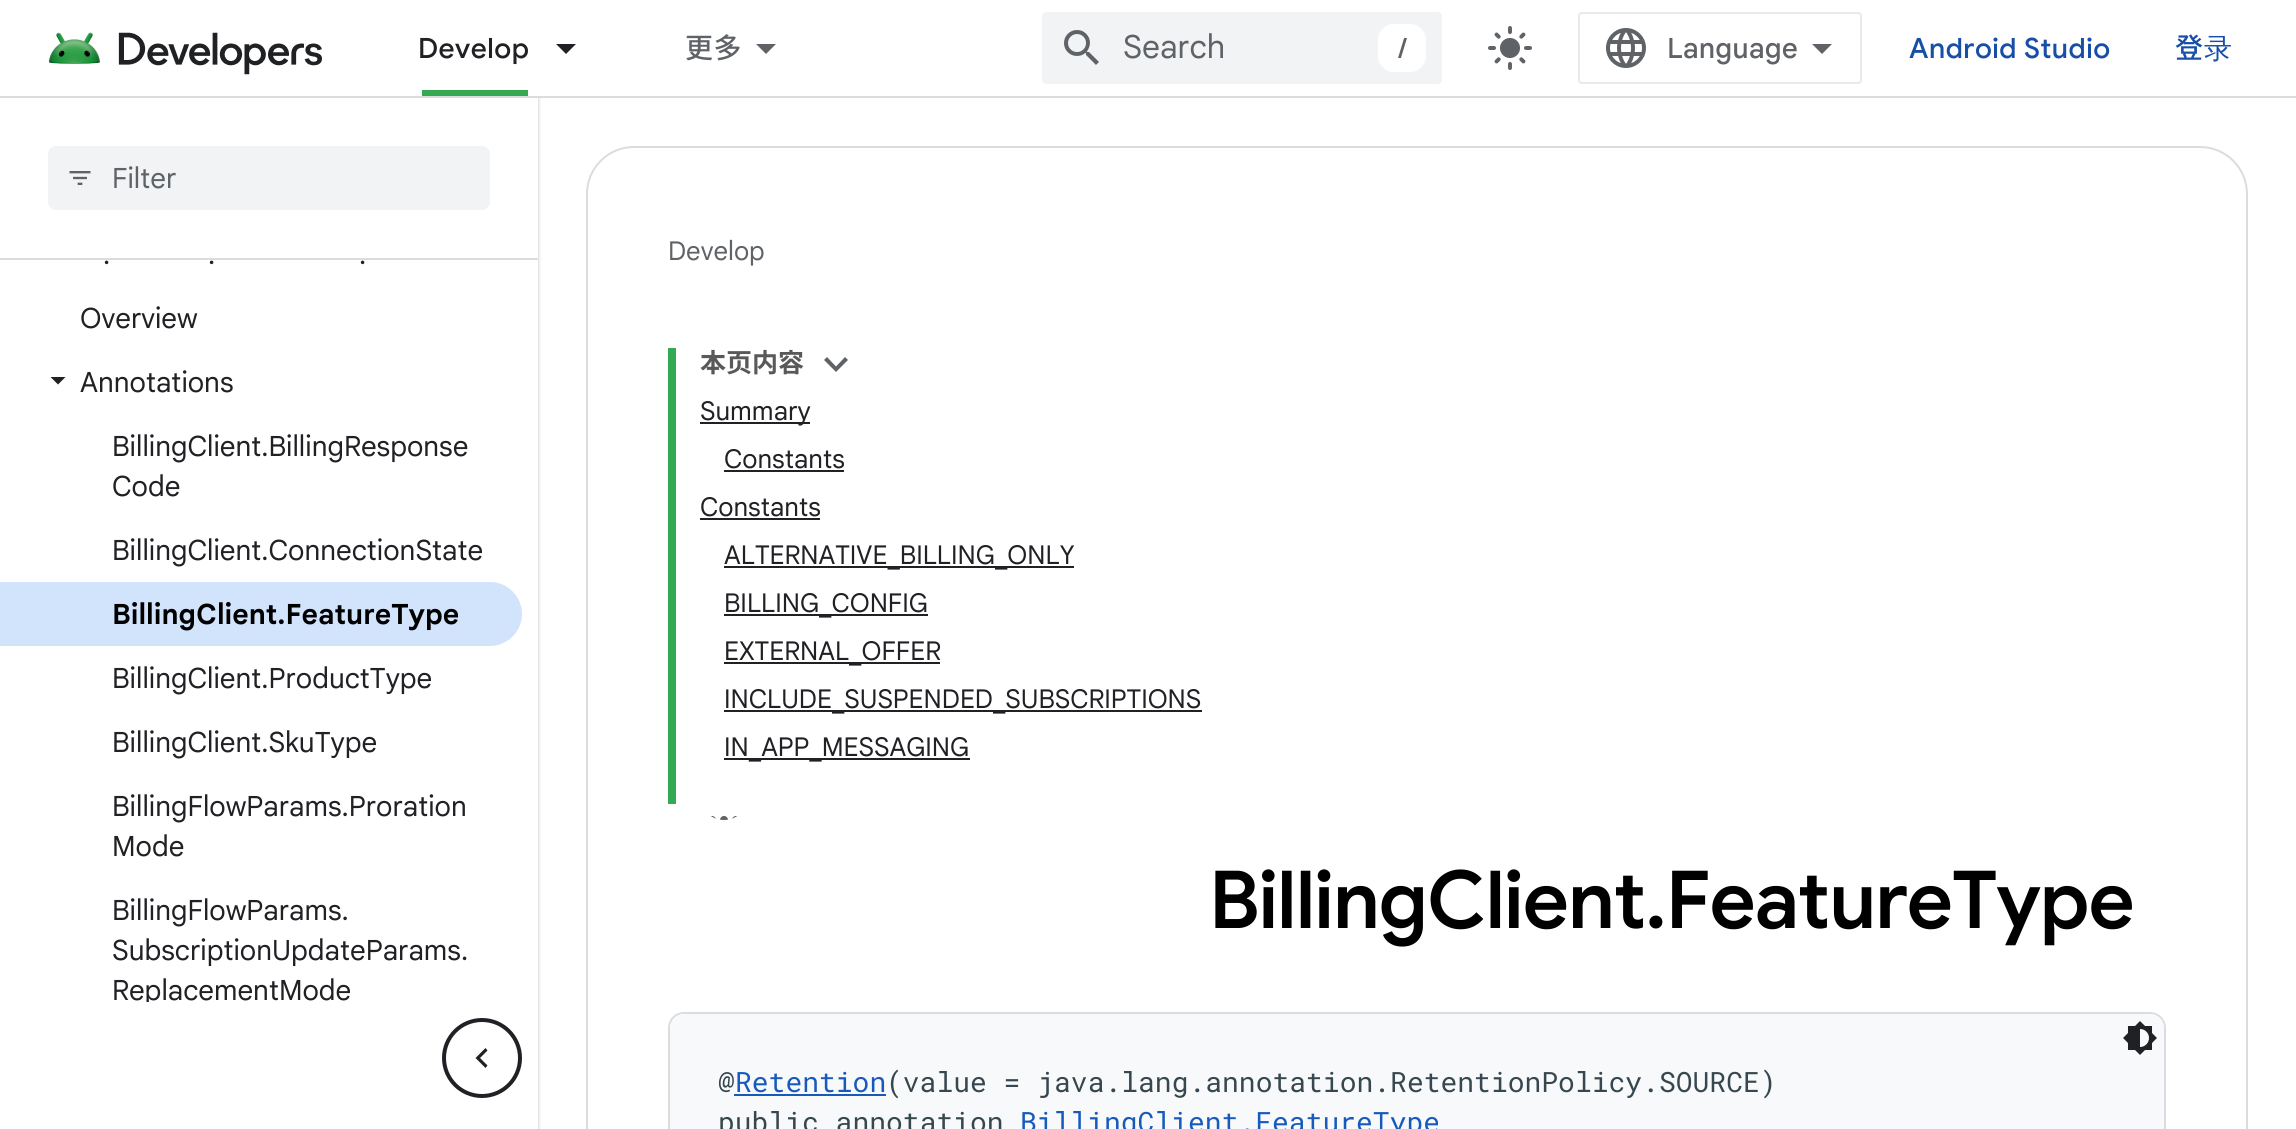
#include <cairo.h>
#include <math.h>
#include <stddef.h>


static void rgb(cairo_t *cr, int r, int g, int b)
{
	cairo_set_source_rgb(cr, r / 255.0, g / 255.0, b / 255.0);
}

static void face(cairo_t *cr, const char *family, double size, int italic, int bold)
{
	cairo_select_font_face(cr, family, italic ? CAIRO_FONT_SLANT_ITALIC : CAIRO_FONT_SLANT_NORMAL,
		bold ? CAIRO_FONT_WEIGHT_BOLD : CAIRO_FONT_WEIGHT_NORMAL);
	cairo_set_font_size(cr, size);
}

static void label(cairo_t *cr, double x, double y, const char *s)
{
	cairo_move_to(cr, x, y);
	cairo_show_text(cr, s);
}

static void tracked(cairo_t *cr, double x, double y, const char *s, double letter, double word)
{
	cairo_move_to(cr, x, y);
	while (*s) {
		char ch[5] = {0};
		int n = 0;
		do ch[n++] = *s++; while ((*s & 0xC0) == 0x80);
		cairo_show_text(cr, ch);
		cairo_rel_move_to(cr, letter + word * (*ch == ' '), 0);
	}
}

static void rect(cairo_t *cr, double x, double y, double w, double h)
{
	cairo_rectangle(cr, x, y, w, h);
	cairo_fill(cr);
}

static void rrect(cairo_t *cr, double x, double y, double w, double h, double r)
{
	cairo_new_sub_path(cr);
	cairo_arc(cr, x + w - r, y + h - r, r, 0, M_PI / 2);
	cairo_arc(cr, x + r, y + h - r, r, M_PI / 2, M_PI);
	cairo_arc(cr, x + r, y + r, r, M_PI, 1.5 * M_PI);
	cairo_arc(cr, x + w - r, y + r, r, 1.5 * M_PI, 2 * M_PI);
	cairo_close_path(cr);
}

static void soft_shadow(cairo_t *cr, double x, double y, double w, double h, double r, double blur, double alpha)
{
	cairo_push_group_with_content(cr, CAIRO_CONTENT_ALPHA);
	cairo_set_operator(cr, CAIRO_OPERATOR_SOURCE);
	for (int i = 15; i >= -15 && fmin(w, h) + blur * i / 3 > 0; i -= 2) {
		double e = blur * i / 6;
		cairo_set_source_rgba(cr, 0, 0, 0, alpha * erfc((i - 1) / 8.5) / 2);
		rrect(cr, x - e, y - e, w + 2 * e, h + 2 * e, fmax(0, fmin(r + e + blur * .6, fmin(w, h) / 2 + e)));
		cairo_fill(cr);
	}
	cairo_pattern_t *soft = cairo_pop_group(cr);
	cairo_mask(cr, soft);
	cairo_pattern_destroy(soft);
}

static void image(cairo_t *cr, const char *path, double x, double y, double w, double h)
{
	cairo_surface_t *image = cairo_image_surface_create_from_png(path);
	cairo_save(cr);
	cairo_set_source_surface(cr, image, x, y);
	cairo_rectangle(cr, x, y, w, h);
	cairo_fill(cr);
	cairo_restore(cr);
	cairo_surface_destroy(image);
}

static void draw(cairo_t *cr) {
	rgb(cr, 255, 255, 255);
	cairo_paint(cr);
	cairo_save(cr);
	cairo_rectangle(cr, 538, 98, 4, 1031);
	cairo_clip(cr);
	rgb(cr, 189, 193, 198);
	soft_shadow(cr, 0, 2, 538, 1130, 0, 2, 1);
	cairo_restore(cr);
	rgb(cr, 255, 255, 255);
	rect(cr, 538, 0, 3, 96);
	rgb(cr, 218, 220, 224);
	rect(cr, 0, 96, 2296, 2);
	image(cr, "image0.png", 48, 32, 274, 43);
	face(cr, "Google Sans Medium", 28, 0, 0);
	rgb(cr, 32, 33, 36);
	tracked(cr, 418, 58, "Develop", 0.5, 0);
	rgb(cr, 52, 168, 83);
	rect(cr, 422, 90, 106, 6);
	rgb(cr, 32, 33, 36);
	cairo_new_path(cr);
	cairo_move_to(cr, 556, 44);
	cairo_line_to(cr, 576, 44);
	cairo_line_to(cr, 566, 54);
	cairo_close_path(cr);
	cairo_fill(cr);
	face(cr, "Noto Sans JP Medium", 28, 0, 0);
	rgb(cr, 95, 99, 104);
	tracked(cr, 685, 58, "更多", 0.5, 0);
	cairo_new_path(cr);
	cairo_move_to(cr, 756, 44);
	cairo_line_to(cr, 776, 44);
	cairo_line_to(cr, 766, 54);
	cairo_close_path(cr);
	cairo_fill(cr);
	rgb(cr, 241, 243, 244);
	rrect(cr, 1042, 12, 400, 72, 4);
	cairo_fill(cr);
	image(cr, "image1.png", 1064, 30, 35, 35);
	face(cr, "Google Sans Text", 32, 0, 0);
	rgb(cr, 95, 99, 104);
	label(cr, 1123, 58, "Search");
	rgb(cr, 255, 255, 255);
	rrect(cr, 1378, 24, 48, 48, 16);
	cairo_fill(cr);
	face(cr, "Google Sans Medium", 28, 0, 0);
	rgb(cr, 95, 99, 104);
	label(cr, 1398, 58, "/");
	image(cr, "image2.png", 1488, 26, 44, 44);
	rrect(cr, 1579, 13, 282, 70, 3);
	rgb(cr, 232, 234, 237);
	cairo_stroke(cr);
	image(cr, "image3.png", 1606, 28, 40, 40);
	face(cr, "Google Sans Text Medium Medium", 28, 0, 0);
	rgb(cr, 95, 99, 104);
	label(cr, 1667, 58, "Language");
	cairo_new_path(cr);
	cairo_move_to(cr, 1822, 54);
	cairo_line_to(cr, 1812, 44);
	cairo_line_to(cr, 1832, 44);
	cairo_close_path(cr);
	cairo_fill(cr);
	face(cr, "Google Sans Medium", 28, 0, 0);
	rgb(cr, 23, 78, 166);
	tracked(cr, 1909, 58, "Android Studio", 0.5, 0);
	face(cr, "Noto Sans JP Medium", 28, 0, 0);
	tracked(cr, 2175, 58, "登", 0.5, 0);
	face(cr, "WenQuanYi Zen Hei Medium", 28, 0, 0);
	tracked(cr, 2204, 58, "录", 0.5, 0);
	rgb(cr, 218, 220, 224);
	rect(cr, 0, 258, 538, 2);
	rgb(cr, 241, 243, 244);
	rrect(cr, 48, 146, 442, 64, 8);
	cairo_fill(cr);
	image(cr, "image4.png", 69, 171, 22, 14);
	face(cr, "Google Sans Text", 28, 0, 0);
	rgb(cr, 95, 99, 104);
	label(cr, 112, 188, "Filter");
	rgb(cr, 32, 33, 36);
	label(cr, 103, 264, ".");
	label(cr, 208, 264, ".");
	label(cr, 359, 264, ".");
	label(cr, 80, 328, "Overview");
	cairo_new_path(cr);
	cairo_move_to(cr, 50.5, 377);
	cairo_line_to(cr, 65.5, 377);
	cairo_line_to(cr, 58, 384.5);
	cairo_close_path(cr);
	cairo_fill(cr);
	label(cr, 80, 392, "Annotations");
	label(cr, 112, 456, "BillingClient.BillingResponse");
	label(cr, 112, 496, "Code");
	label(cr, 112, 560, "BillingClient.ConnectionState");
	rgb(cr, 210, 227, 252);
	cairo_new_path(cr);
	cairo_move_to(cr, 0, 582);
	cairo_line_to(cr, 490, 582);
	cairo_curve_to(cr, 507.5, 582, 522, 596.5, 522, 614);
	cairo_curve_to(cr, 522, 631.5, 507.5, 646, 490, 646);
	cairo_line_to(cr, 0, 646);
	cairo_close_path(cr);
	cairo_fill(cr);
	face(cr, "Google Sans Text", 28, 0, 1);
	rgb(cr, 0, 0, 0);
	label(cr, 112, 624, "BillingClient.FeatureType");
	face(cr, "Google Sans Text", 28, 0, 0);
	rgb(cr, 32, 33, 36);
	label(cr, 112, 688, "BillingClient.ProductType");
	label(cr, 112, 752, "BillingClient.SkuType");
	label(cr, 112, 816, "BillingFlowParams.Proration");
	label(cr, 112, 856, "Mode");
	label(cr, 112, 920, "BillingFlowParams.");
	label(cr, 112, 960, "SubscriptionUpdateParams.");
	label(cr, 112, 1000, "ReplacementMode");
	rrect(cr, 587, 147, 1660, 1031, 47);
	rgb(cr, 218, 220, 224);
	cairo_stroke(cr);
	face(cr, "Google Sans Text", 26, 0, 0);
	rgb(cr, 95, 99, 104);
	label(cr, 668, 260, "Develop");
	rgb(cr, 52, 168, 83);
	rect(cr, 668, 348, 8, 456);
	face(cr, "Noto Sans JP", 26, 0, 1);
	rgb(cr, 89, 89, 89);
	label(cr, 700, 372, "本页内容");
	rgb(cr, 95, 99, 104);
	cairo_new_path(cr);
	cairo_move_to(cr, 845, 357);
	cairo_line_to(cr, 848, 360);
	cairo_line_to(cr, 836, 372);
	cairo_line_to(cr, 824, 360);
	cairo_line_to(cr, 827, 357);
	cairo_line_to(cr, 836, 366.5);
	cairo_close_path(cr);
	cairo_fill(cr);
	rgb(cr, 32, 33, 36);
	rect(cr, 700, 422, 110, 2);
	face(cr, "Google Sans Text", 26, 0, 0);
	label(cr, 700, 420, "Summary");
	label(cr, 724, 468, "Constants");
	rect(cr, 724, 470, 120, 2);
	label(cr, 700, 516, "Constants");
	rect(cr, 700, 518, 120, 2);
	rect(cr, 724, 566, 350, 2);
	label(cr, 724, 564, "ALTERNATIVE_BILLING_ONLY");
	rect(cr, 724, 614, 204, 2);
	label(cr, 724, 612, "BILLING_CONFIG");
	rect(cr, 724, 662, 216, 2);
	label(cr, 724, 660, "EXTERNAL_OFFER");
	rect(cr, 724, 710, 478, 2);
	label(cr, 724, 708, "INCLUDE_SUSPENDED_SUBSCRIPTIONS");
	rect(cr, 724, 758, 246, 2);
	label(cr, 724, 756, "IN_APP_MESSAGING");
	image(cr, "image5.png", 711, 816, 26, 4);
	face(cr, "Google Sans SemiBold", 80, 0, 0);
	rgb(cr, 0, 0, 0);
	tracked(cr, 1209, 928, "BillingClient.FeatureType", -1, 0);
	rrect(cr, 669, 1013, 1496, 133, 15);
	rgb(cr, 218, 220, 224);
	cairo_stroke(cr);
	rgb(cr, 248, 249, 250);
	rrect(cr, 670, 1014, 1494, 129, 14);
	cairo_fill(cr);
	image(cr, "image6.png", 2123, 1021, 34, 34);
	face(cr, "Roboto Mono", 28, 0, 0);
	rgb(cr, 55, 71, 79);
	label(cr, 718, 1092, "@");
	rgb(cr, 24, 90, 188);
	label(cr, 735, 1092, "Retention");
	rect(cr, 734, 1094, 152, 2);
	rgb(cr, 55, 71, 79);
	label(cr, 886, 1092, "(value = java.lang.annotation.RetentionPolicy.SOURCE)");
	label(cr, 718, 1132, "public annotation");
	rgb(cr, 24, 90, 188);
	label(cr, 1020, 1132, "BillingClient.FeatureType");
	rgb(cr, 255, 255, 255);
	rect(cr, 146, 1002, 3, 5);
	cairo_new_path(cr);
	cairo_arc(cr, 482, 1058, 38, 0, 2 * M_PI);
	rgb(cr, 32, 33, 36);
	cairo_set_line_width(cr, 4);
	cairo_stroke(cr);
	cairo_new_path(cr);
	cairo_move_to(cr, 487.5, 1050.5);
	cairo_line_to(cr, 480, 1058);
	cairo_line_to(cr, 487.5, 1065.5);
	cairo_line_to(cr, 485.5, 1068);
	cairo_line_to(cr, 475.5, 1058);
	cairo_line_to(cr, 485.5, 1048);
	cairo_close_path(cr);
	cairo_fill(cr);
}

int main(void) {
	cairo_surface_t *surface = cairo_image_surface_create(CAIRO_FORMAT_RGB24, 2296, 1129);
	cairo_t *cr = cairo_create(surface);
	cairo_font_options_t *options = cairo_font_options_create();
	cairo_font_options_set_hint_metrics(options, CAIRO_HINT_METRICS_OFF);
	cairo_font_options_set_hint_style(options, CAIRO_HINT_STYLE_NONE);
	cairo_set_font_options(cr, options);
	cairo_set_miter_limit(cr, 4);
	draw(cr);
	cairo_surface_write_to_png(surface, "render.png");
	cairo_font_options_destroy(options);
	cairo_destroy(cr);
	cairo_surface_destroy(surface);
	return 0;
}
